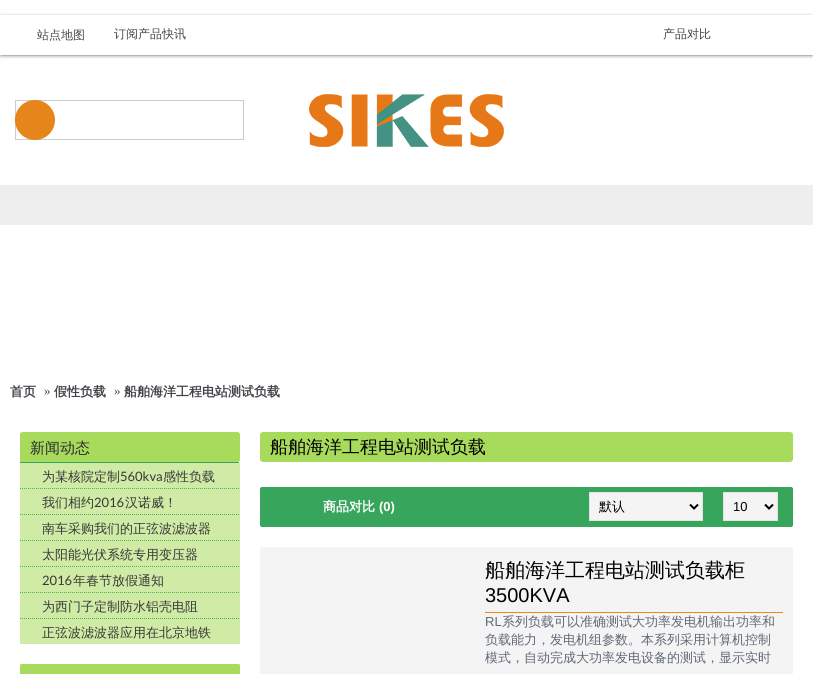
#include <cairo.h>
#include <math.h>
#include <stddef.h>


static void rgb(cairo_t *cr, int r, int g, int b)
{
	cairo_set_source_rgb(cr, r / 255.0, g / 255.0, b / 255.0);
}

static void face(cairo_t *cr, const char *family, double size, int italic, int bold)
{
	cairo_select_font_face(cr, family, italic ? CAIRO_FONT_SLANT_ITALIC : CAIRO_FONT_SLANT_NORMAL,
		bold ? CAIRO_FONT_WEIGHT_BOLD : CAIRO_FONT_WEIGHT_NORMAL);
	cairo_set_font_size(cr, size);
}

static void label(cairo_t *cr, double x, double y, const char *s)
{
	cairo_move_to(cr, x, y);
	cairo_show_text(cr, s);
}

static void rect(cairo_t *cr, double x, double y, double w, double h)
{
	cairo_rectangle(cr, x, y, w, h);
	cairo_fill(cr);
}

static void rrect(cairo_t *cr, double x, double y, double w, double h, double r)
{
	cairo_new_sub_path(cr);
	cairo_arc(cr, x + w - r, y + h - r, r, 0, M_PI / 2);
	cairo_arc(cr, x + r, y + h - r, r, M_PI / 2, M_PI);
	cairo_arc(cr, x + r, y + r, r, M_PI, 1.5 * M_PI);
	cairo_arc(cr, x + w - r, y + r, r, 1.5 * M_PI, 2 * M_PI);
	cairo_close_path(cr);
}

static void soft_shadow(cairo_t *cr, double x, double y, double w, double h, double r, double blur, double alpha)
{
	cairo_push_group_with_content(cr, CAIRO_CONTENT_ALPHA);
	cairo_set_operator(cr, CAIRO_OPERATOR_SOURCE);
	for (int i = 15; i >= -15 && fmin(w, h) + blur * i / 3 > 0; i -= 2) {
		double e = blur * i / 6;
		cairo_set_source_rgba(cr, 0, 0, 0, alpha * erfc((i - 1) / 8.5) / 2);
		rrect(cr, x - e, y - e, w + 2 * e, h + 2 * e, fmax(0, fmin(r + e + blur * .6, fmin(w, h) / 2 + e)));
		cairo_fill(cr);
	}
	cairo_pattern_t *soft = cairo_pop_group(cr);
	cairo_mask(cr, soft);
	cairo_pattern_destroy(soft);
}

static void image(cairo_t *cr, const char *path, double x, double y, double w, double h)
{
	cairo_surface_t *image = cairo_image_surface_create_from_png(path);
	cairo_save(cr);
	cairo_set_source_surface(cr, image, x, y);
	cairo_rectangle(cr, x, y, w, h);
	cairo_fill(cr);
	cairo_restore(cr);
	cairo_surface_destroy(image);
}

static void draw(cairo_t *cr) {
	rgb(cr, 255, 255, 255);
	cairo_paint(cr);
	cairo_save(cr);
	cairo_set_fill_rule(cr, CAIRO_FILL_RULE_EVEN_ODD);
	cairo_new_path(cr);
	cairo_move_to(cr, 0, 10);
	cairo_line_to(cr, 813, 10);
	cairo_line_to(cr, 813, 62);
	cairo_line_to(cr, 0, 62);
	cairo_close_path(cr);
	cairo_move_to(cr, 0, 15);
	cairo_line_to(cr, 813, 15);
	cairo_line_to(cr, 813, 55);
	cairo_line_to(cr, 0, 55);
	cairo_close_path(cr);
	cairo_clip(cr);
	rgb(cr, 0, 0, 0);
	soft_shadow(cr, 1, 17, 811, 38, 0, 2, 0.7);
	cairo_restore(cr);
	face(cr, "WenQuanYi Zen Hei Medium", 12, 0, 0);
	rgb(cr, 68, 67, 73);
	label(cr, 37, 39, "站点地图");
	label(cr, 114, 38, "订阅产品快讯");
	label(cr, 663, 38, "产品对比");
	cairo_rectangle(cr, 15.5, 100.5, 228, 39);
	rgb(cr, 204, 204, 204);
	cairo_set_line_width(cr, 1);
	cairo_stroke(cr);
	rgb(cr, 230, 133, 25);
	cairo_arc(cr, 35, 120, 20, 0, 2 * M_PI);
	cairo_fill(cr);
	image(cr, "image0.png", 309, 94, 195, 53);
	rgb(cr, 238, 238, 238);
	rect(cr, 0, 185, 813, 40);
	face(cr, "WenQuanYi Zen Hei", 13, 0, 1);
	rgb(cr, 68, 67, 73);
	label(cr, 10, 396, "首页");
	face(cr, "Liberation Serif", 13, 0, 0);
	label(cr, 44, 395, "»");
	face(cr, "WenQuanYi Zen Hei", 13, 0, 1);
	label(cr, 54, 396, "假性负载");
	face(cr, "Liberation Serif", 13, 0, 0);
	label(cr, 114, 395, "»");
	face(cr, "WenQuanYi Zen Hei", 13, 0, 1);
	label(cr, 124, 396, "船舶海洋工程电站测试负载");
	rgb(cr, 168, 219, 92);
	cairo_new_path(cr);
	cairo_move_to(cr, 23, 432);
	cairo_line_to(cr, 237, 432);
	cairo_curve_to(cr, 239, 432, 240, 433, 240, 435);
	cairo_line_to(cr, 240, 460);
	cairo_curve_to(cr, 240, 461, 239, 462, 237, 462);
	cairo_line_to(cr, 20, 462);
	cairo_line_to(cr, 20, 435);
	cairo_curve_to(cr, 20, 433, 21, 432, 23, 432);
	cairo_close_path(cr);
	cairo_fill(cr);
	rgb(cr, 55, 165, 92);
	rect(cr, 20, 462, 219, 1);
	face(cr, "WenQuanYi Zen Hei Medium", 15, 0, 0);
	rgb(cr, 42, 43, 46);
	label(cr, 30, 453, "新闻动态");
	rgb(cr, 207, 235, 165);
	rect(cr, 20, 463, 220, 181);
	cairo_new_path(cr);
	cairo_move_to(cr, 20, 488.5);
	cairo_line_to(cr, 240, 488.5);
	rgb(cr, 76, 179, 86);
	cairo_set_dash(cr, (double[]){1, 1}, 2, 0);
	cairo_stroke(cr);
	face(cr, "WenQuanYi Zen Hei Medium", 13, 0, 0);
	rgb(cr, 56, 56, 56);
	label(cr, 42, 481, "为某核院定制");
	face(cr, "Lato", 13, 0, 0);
	label(cr, 120, 481, "560kva");
	face(cr, "WenQuanYi Zen Hei Medium", 13, 0, 0);
	label(cr, 163, 481, "感性负载");
	cairo_new_path(cr);
	cairo_move_to(cr, 20, 514.5);
	cairo_line_to(cr, 240, 514.5);
	rgb(cr, 76, 179, 86);
	cairo_stroke(cr);
	rgb(cr, 56, 56, 56);
	label(cr, 42, 507, "我们相约");
	face(cr, "Lato", 13, 0, 0);
	label(cr, 94, 507, "2016");
	face(cr, "WenQuanYi Zen Hei Medium", 13, 0, 0);
	label(cr, 125, 507, "汉诺威！");
	cairo_new_path(cr);
	cairo_move_to(cr, 20, 540.5);
	cairo_line_to(cr, 240, 540.5);
	rgb(cr, 76, 179, 86);
	cairo_stroke(cr);
	rgb(cr, 56, 56, 56);
	label(cr, 42, 533, "南车采购我们的正弦波滤波器");
	cairo_new_path(cr);
	cairo_move_to(cr, 20, 566.5);
	cairo_line_to(cr, 240, 566.5);
	rgb(cr, 76, 179, 86);
	cairo_stroke(cr);
	rgb(cr, 56, 56, 56);
	label(cr, 42, 559, "太阳能光伏系统专用变压器");
	cairo_new_path(cr);
	cairo_move_to(cr, 20, 592.5);
	cairo_line_to(cr, 240, 592.5);
	rgb(cr, 76, 179, 86);
	cairo_stroke(cr);
	face(cr, "Lato", 13, 0, 0);
	rgb(cr, 56, 56, 56);
	label(cr, 42, 585, "2016");
	face(cr, "WenQuanYi Zen Hei Medium", 13, 0, 0);
	label(cr, 73, 585, "年春节放假通知");
	cairo_new_path(cr);
	cairo_move_to(cr, 20, 618.5);
	cairo_line_to(cr, 240, 618.5);
	rgb(cr, 76, 179, 86);
	cairo_stroke(cr);
	rgb(cr, 56, 56, 56);
	label(cr, 42, 611, "为西门子定制防水铝壳电阻");
	label(cr, 42, 637, "正弦波滤波器应用在北京地铁");
	rgb(cr, 207, 235, 165);
	rect(cr, 20, 664, 220, 3);
	rgb(cr, 168, 219, 92);
	cairo_new_path(cr);
	cairo_move_to(cr, 23, 664);
	cairo_line_to(cr, 237, 664);
	cairo_curve_to(cr, 239, 664, 240, 665, 240, 667);
	cairo_line_to(cr, 240, 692);
	cairo_curve_to(cr, 240, 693, 239, 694, 237, 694);
	cairo_line_to(cr, 20, 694);
	cairo_line_to(cr, 20, 667);
	cairo_curve_to(cr, 20, 665, 21, 664, 23, 664);
	cairo_close_path(cr);
	cairo_fill(cr);
	rrect(cr, 260, 432, 533, 30, 3);
	cairo_fill(cr);
	face(cr, "WenQuanYi Zen Hei Medium", 18, 0, 0);
	rgb(cr, 0, 0, 0);
	label(cr, 270, 453, "船舶海洋工程电站测试负载");
	rgb(cr, 55, 165, 92);
	rrect(cr, 260, 487, 533, 40, 2);
	cairo_fill(cr);
	face(cr, "WenQuanYi Zen Hei", 13, 0, 1);
	rgb(cr, 255, 255, 255);
	label(cr, 323, 511, "商品对比");
	face(cr, "Liberation Sans", 13, 0, 1);
	label(cr, 379, 511, "(0)");
	rgb(cr, 244, 244, 244);
	cairo_rectangle(cr, 589.5, 492.5, 113, 28);
	cairo_fill_preserve(cr);
	rgb(cr, 228, 228, 228);
	cairo_set_dash(cr, NULL, 0, 0);
	cairo_stroke(cr);
	cairo_new_path(cr);
	cairo_move_to(cr, 690, 504.5);
	cairo_line_to(cr, 694, 508.5);
	cairo_line_to(cr, 698, 504.5);
	rgb(cr, 0, 0, 0);
	cairo_set_line_width(cr, 2);
	cairo_stroke(cr);
	face(cr, "WenQuanYi Zen Hei Medium", 13, 0, 0);
	label(cr, 599, 511, "默认");
	rgb(cr, 244, 244, 244);
	cairo_rectangle(cr, 723.5, 492.5, 54, 28);
	cairo_fill_preserve(cr);
	rgb(cr, 228, 228, 228);
	cairo_set_line_width(cr, 1);
	cairo_stroke(cr);
	cairo_new_path(cr);
	cairo_move_to(cr, 765, 504.5);
	cairo_line_to(cr, 769, 508.5);
	cairo_line_to(cr, 773, 504.5);
	rgb(cr, 0, 0, 0);
	cairo_set_line_width(cr, 2);
	cairo_stroke(cr);
	face(cr, "Liberation Sans", 13, 0, 0);
	label(cr, 733, 511, "10");
	rgb(cr, 244, 244, 244);
	rrect(cr, 260, 547, 533, 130, 3);
	cairo_fill(cr);
	rgb(cr, 240, 133, 25);
	rect(cr, 485, 612, 298, 1);
	face(cr, "WenQuanYi Zen Hei Medium", 20, 0, 0);
	rgb(cr, 0, 0, 0);
	label(cr, 485, 577, "船舶海洋工程电站测试负载柜");
	face(cr, "Liberation Sans", 20, 0, 0);
	label(cr, 485, 602, "3500KVA");
	face(cr, "Liberation Sans", 13, 0, 0);
	rgb(cr, 95, 104, 116);
	label(cr, 485, 626, "RL");
	face(cr, "WenQuanYi Zen Hei Medium", 13, 0, 0);
	label(cr, 502, 626, "系列负载可以准确测试大功率发电机输出功率和");
	label(cr, 485, 644, "负载能力，发电机组参数。本系列采用计算机控制");
	label(cr, 485, 662, "模式，自动完成大功率发电设备的测试，显示实时");
}

int main(void) {
	cairo_surface_t *surface = cairo_image_surface_create(CAIRO_FORMAT_RGB24, 813, 674);
	cairo_t *cr = cairo_create(surface);
	cairo_font_options_t *options = cairo_font_options_create();
	cairo_font_options_set_hint_metrics(options, CAIRO_HINT_METRICS_OFF);
	cairo_font_options_set_hint_style(options, CAIRO_HINT_STYLE_NONE);
	cairo_set_font_options(cr, options);
	cairo_set_miter_limit(cr, 4);
	draw(cr);
	cairo_surface_write_to_png(surface, "render.png");
	cairo_font_options_destroy(options);
	cairo_destroy(cr);
	cairo_surface_destroy(surface);
	return 0;
}
